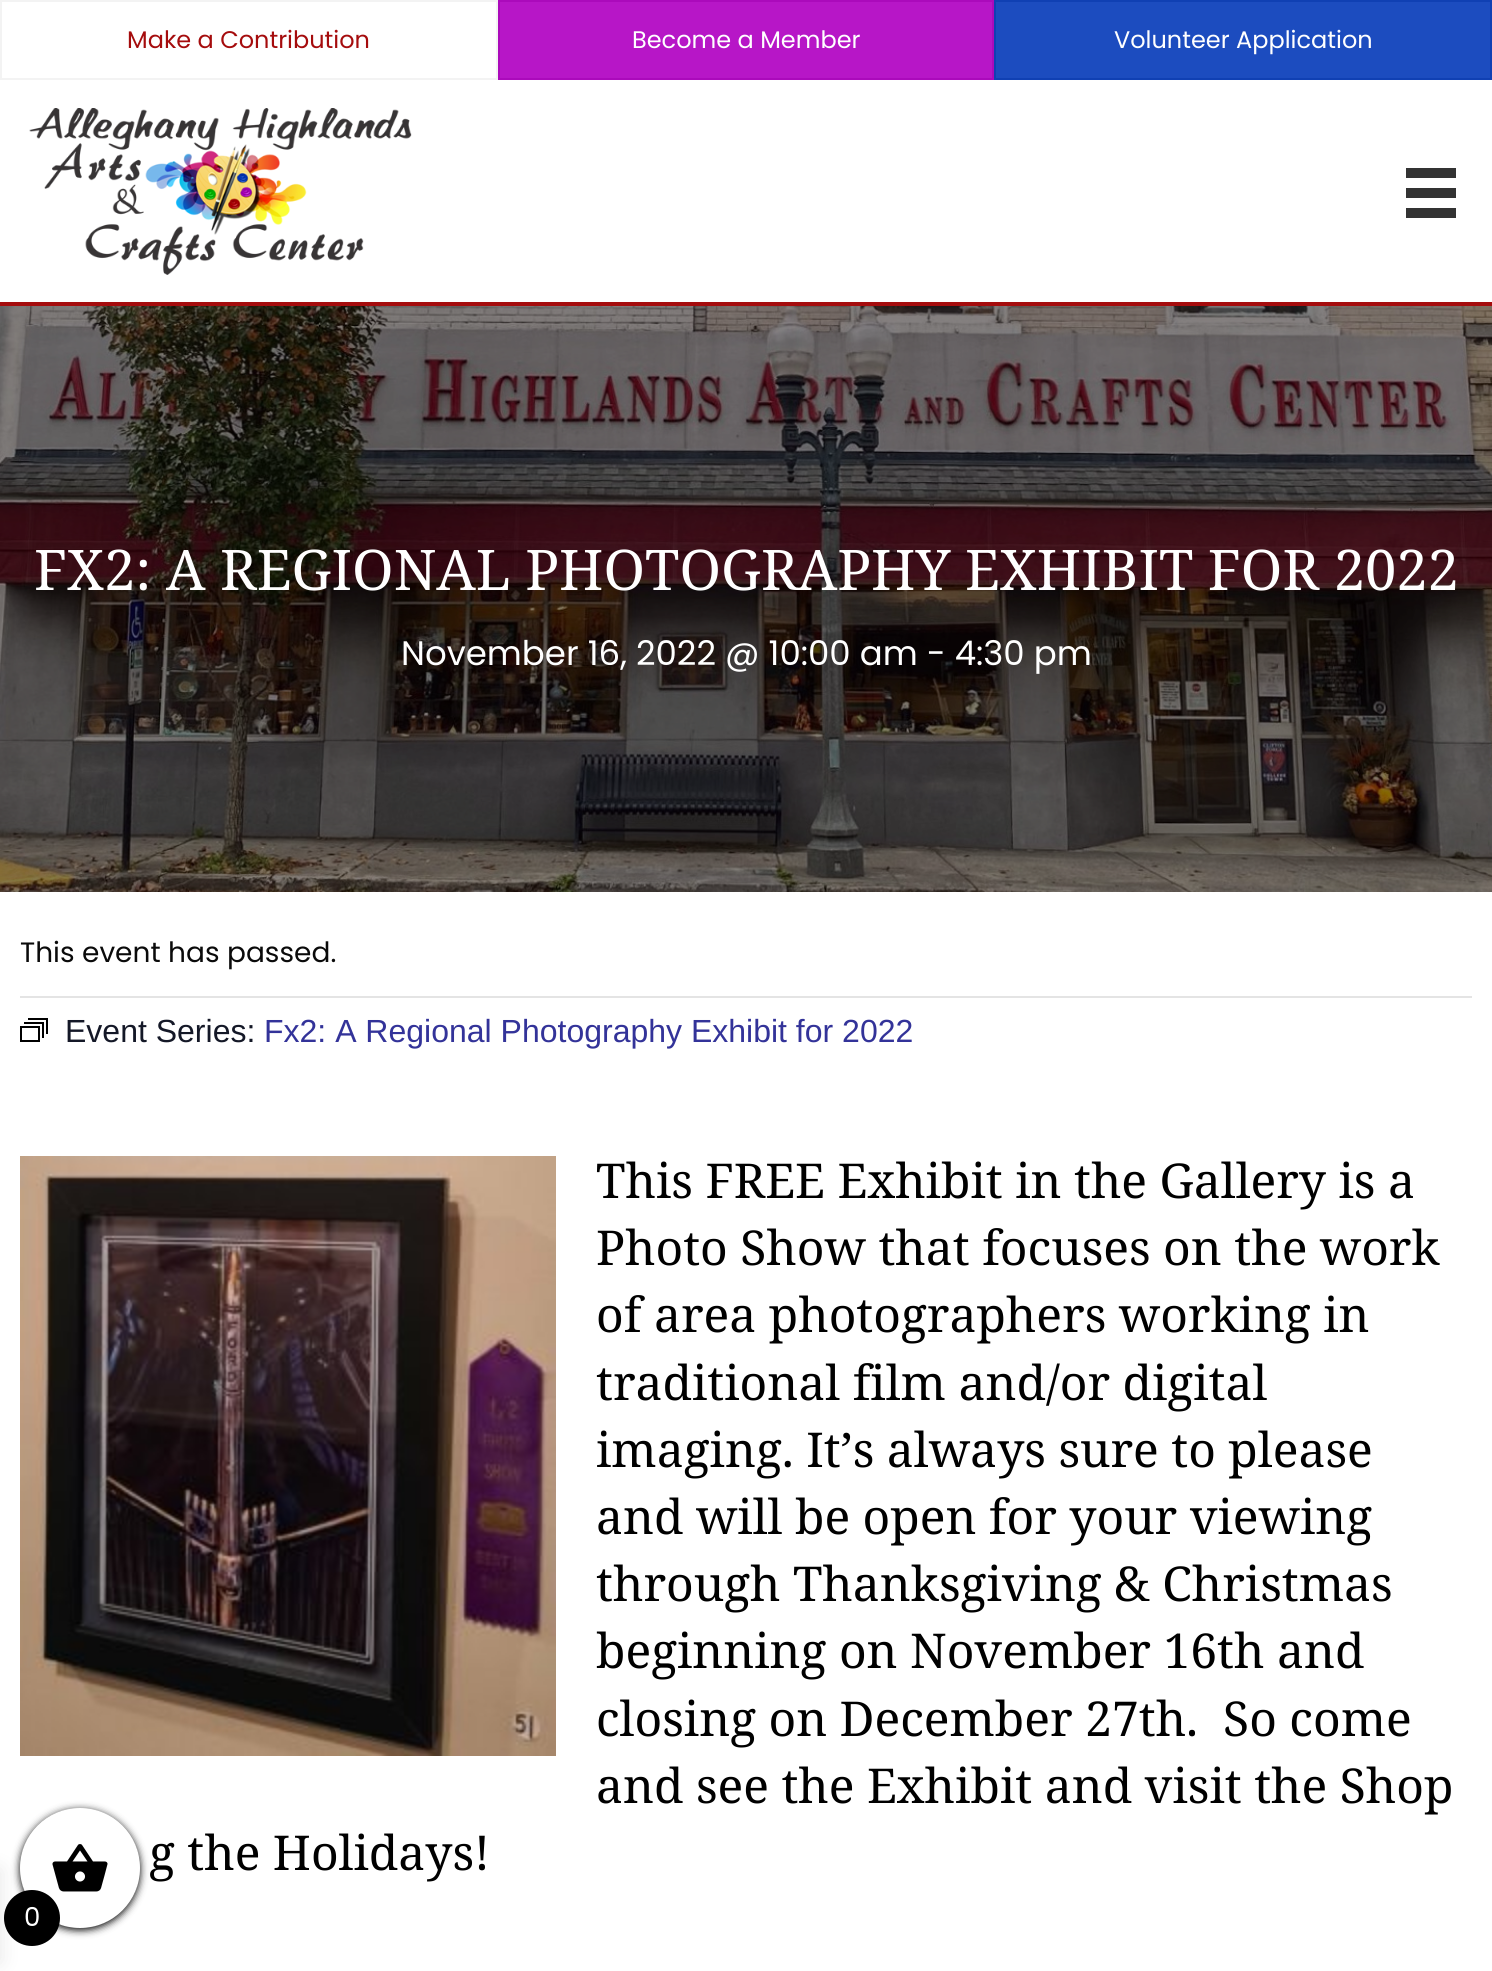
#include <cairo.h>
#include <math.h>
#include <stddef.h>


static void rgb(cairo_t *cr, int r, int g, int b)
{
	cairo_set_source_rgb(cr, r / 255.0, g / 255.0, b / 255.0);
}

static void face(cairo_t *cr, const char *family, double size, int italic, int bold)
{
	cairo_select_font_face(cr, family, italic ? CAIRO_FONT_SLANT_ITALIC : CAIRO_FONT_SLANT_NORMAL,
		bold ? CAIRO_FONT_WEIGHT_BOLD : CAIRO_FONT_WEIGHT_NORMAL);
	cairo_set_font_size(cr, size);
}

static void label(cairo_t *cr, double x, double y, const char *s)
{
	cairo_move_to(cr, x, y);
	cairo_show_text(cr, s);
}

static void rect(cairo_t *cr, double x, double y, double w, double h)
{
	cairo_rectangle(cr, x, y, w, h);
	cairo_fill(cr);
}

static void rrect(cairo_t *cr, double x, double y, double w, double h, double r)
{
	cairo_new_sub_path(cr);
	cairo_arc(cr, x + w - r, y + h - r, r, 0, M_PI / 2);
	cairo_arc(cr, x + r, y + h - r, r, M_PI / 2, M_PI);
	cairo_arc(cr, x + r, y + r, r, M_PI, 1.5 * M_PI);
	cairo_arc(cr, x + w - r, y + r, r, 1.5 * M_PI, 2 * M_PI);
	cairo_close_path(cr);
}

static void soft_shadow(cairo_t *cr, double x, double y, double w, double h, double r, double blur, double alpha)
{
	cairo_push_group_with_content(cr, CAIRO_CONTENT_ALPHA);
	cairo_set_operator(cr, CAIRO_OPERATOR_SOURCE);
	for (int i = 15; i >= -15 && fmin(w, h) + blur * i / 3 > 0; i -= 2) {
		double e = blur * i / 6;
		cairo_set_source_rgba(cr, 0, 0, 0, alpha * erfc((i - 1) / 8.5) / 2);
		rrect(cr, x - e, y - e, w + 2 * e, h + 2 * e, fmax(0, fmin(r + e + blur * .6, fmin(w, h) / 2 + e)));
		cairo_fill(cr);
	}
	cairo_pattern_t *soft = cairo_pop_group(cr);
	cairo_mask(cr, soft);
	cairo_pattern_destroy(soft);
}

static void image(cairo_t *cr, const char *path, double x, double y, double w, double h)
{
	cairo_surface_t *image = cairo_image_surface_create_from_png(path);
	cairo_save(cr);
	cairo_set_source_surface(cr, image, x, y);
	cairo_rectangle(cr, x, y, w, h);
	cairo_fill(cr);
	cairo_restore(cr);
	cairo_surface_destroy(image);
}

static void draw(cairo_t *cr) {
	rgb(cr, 255, 255, 255);
	cairo_paint(cr);
	cairo_rectangle(cr, 1, 1, 496, 78);
	rgb(cr, 243, 243, 243);
	cairo_stroke(cr);
	face(cr, "Poppins", 24, 0, 0);
	rgb(cr, 165, 12, 13);
	label(cr, 127, 48, "Make a Contribution");
	rgb(cr, 183, 22, 199);
	cairo_rectangle(cr, 499, 1, 494, 78);
	cairo_fill_preserve(cr);
	rgb(cr, 171, 10, 187);
	cairo_stroke(cr);
	rgb(cr, 255, 255, 255);
	label(cr, 632, 48, "Become a Member");
	rgb(cr, 28, 76, 191);
	cairo_rectangle(cr, 995, 1, 496, 78);
	cairo_fill_preserve(cr);
	rgb(cr, 16, 64, 179);
	cairo_stroke(cr);
	rgb(cr, 255, 255, 255);
	label(cr, 1114, 48, "Volunteer Application");
	rgb(cr, 165, 12, 13);
	rect(cr, 0, 302, 1492, 4);
	image(cr, "image0.png", 29, 108, 383, 167);
	rgb(cr, 51, 51, 51);
	rect(cr, 1406, 168, 50, 10);
	rect(cr, 1406, 188, 50, 10);
	rect(cr, 1406, 208, 50, 10);
	image(cr, "image1.png", 0, 306, 1492, 586);
	face(cr, "Noto Serif", 56, 0, 0);
	rgb(cr, 255, 255, 255);
	label(cr, 34, 590, "FX2: A REGIONAL PHOTOGRAPHY EXHIBIT FOR 2022");
	face(cr, "Poppins", 34, 0, 0);
	label(cr, 401, 665, "November 16, 2022 @ 10:00 am - 4:30 pm");
	rgb(cr, 228, 228, 228);
	rect(cr, 20, 996, 1452, 2);
	face(cr, "Poppins", 28, 0, 0);
	rgb(cr, 10, 10, 10);
	label(cr, 20, 962, "This event has passed.");
	cairo_rectangle(cr, 21, 1027, 18, 14);
	rgb(cr, 0, 0, 0);
	cairo_stroke(cr);
	cairo_new_path(cr);
	cairo_move_to(cr, 24, 1023);
	cairo_line_to(cr, 43, 1023);
	cairo_line_to(cr, 43, 1038);
	cairo_move_to(cr, 28, 1019);
	cairo_line_to(cr, 47, 1019);
	cairo_line_to(cr, 47, 1034);
	cairo_stroke(cr);
	face(cr, "Liberation Sans", 32, 0, 0);
	rgb(cr, 20, 24, 39);
	label(cr, 65, 1042, "Event Series:");
	rgb(cr, 51, 51, 153);
	label(cr, 264, 1042, "Fx2: A Regional Photography Exhibit for 2022");
	image(cr, "image2.png", 20, 1156, 536, 600);
	face(cr, "Noto Serif", 48, 0, 0);
	rgb(cr, 0, 0, 0);
	label(cr, 596, 1198, "This FREE Exhibit in the Gallery is a");
	label(cr, 596, 1265, "Photo Show that focuses on the work");
	label(cr, 596, 1332, "of area photographers working in");
	label(cr, 596, 1400, "traditional film and/or digital");
	label(cr, 596, 1467, "imaging. It’s always sure to please");
	label(cr, 596, 1534, "and will be open for your viewing");
	label(cr, 596, 1601, "through Thanksgiving & Christmas");
	label(cr, 596, 1668, "beginning on November 16th and");
	label(cr, 596, 1736, "closing on December 27th.  So come");
	label(cr, 596, 1803, "and see the Exhibit and visit the Shop");
	label(cr, 149, 1870, "g the Holidays!");
	rgb(cr, 0, 0, 0);
	soft_shadow(cr, -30, 1870, 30, 92, 0, 10, 0.1);
	soft_shadow(cr, 20, 1810, 120, 120, 60, 4, 1);
	rgb(cr, 255, 255, 255);
	cairo_arc(cr, 80, 1868, 60, 0, 2 * M_PI);
	cairo_fill(cr);
	image(cr, "image3.png", 52, 1844, 56, 48);
	rgb(cr, 0, 0, 0);
	cairo_arc(cr, 32, 1918, 28, 0, 2 * M_PI);
	cairo_fill(cr);
	face(cr, "Poppins", 26, 0, 0);
	rgb(cr, 255, 255, 255);
	label(cr, 24, 1926, "0");
}

int main(void) {
	cairo_surface_t *surface = cairo_image_surface_create(CAIRO_FORMAT_RGB24, 1492, 1971);
	cairo_t *cr = cairo_create(surface);
	cairo_font_options_t *options = cairo_font_options_create();
	cairo_font_options_set_hint_metrics(options, CAIRO_HINT_METRICS_OFF);
	cairo_font_options_set_hint_style(options, CAIRO_HINT_STYLE_NONE);
	cairo_set_font_options(cr, options);
	cairo_set_miter_limit(cr, 4);
	draw(cr);
	cairo_surface_write_to_png(surface, "render.png");
	cairo_font_options_destroy(options);
	cairo_destroy(cr);
	cairo_surface_destroy(surface);
	return 0;
}
